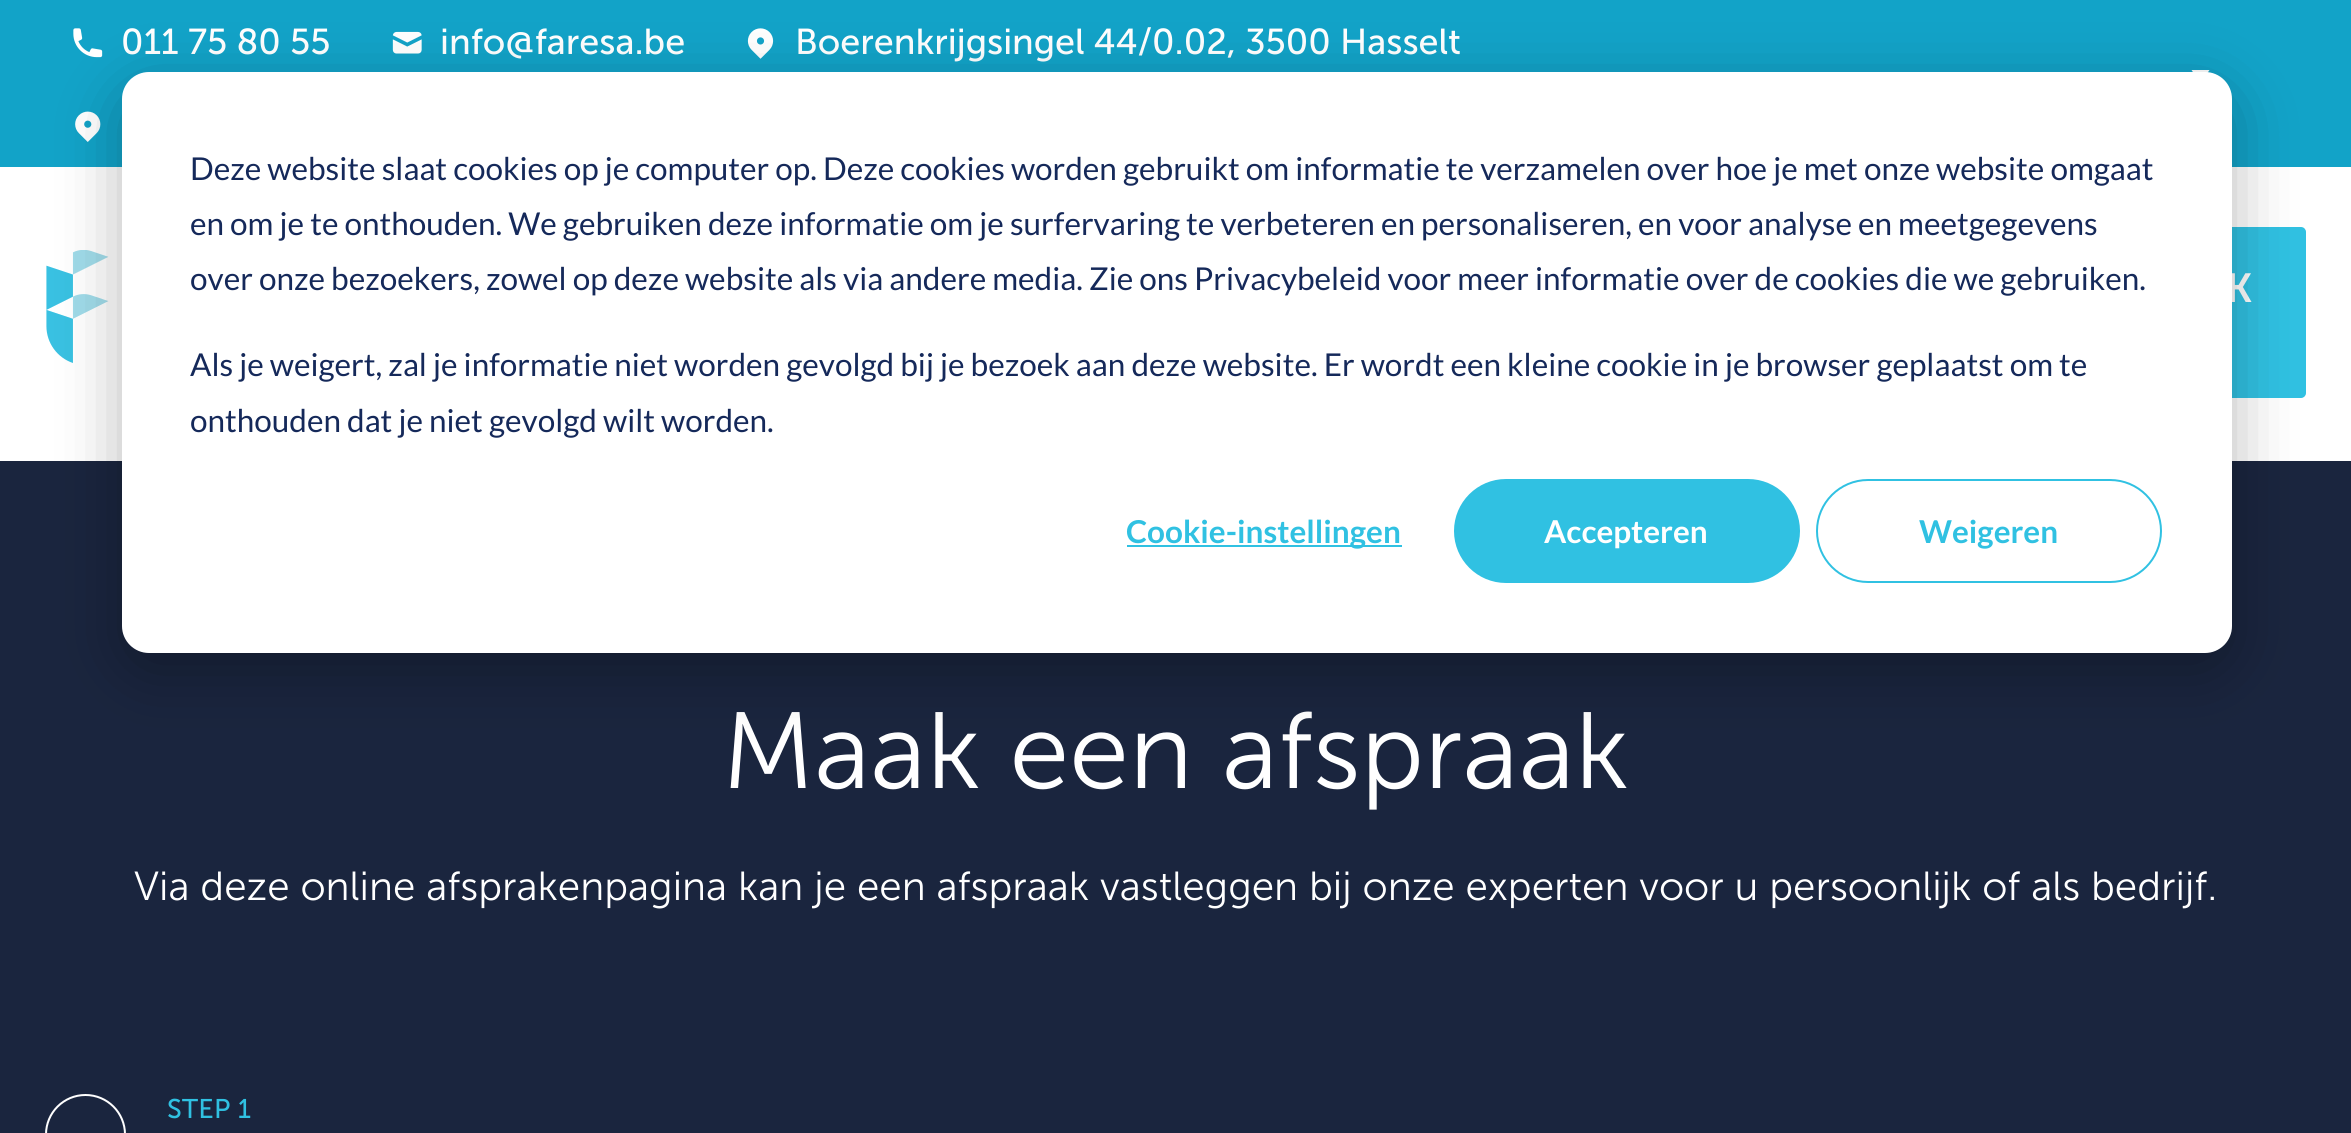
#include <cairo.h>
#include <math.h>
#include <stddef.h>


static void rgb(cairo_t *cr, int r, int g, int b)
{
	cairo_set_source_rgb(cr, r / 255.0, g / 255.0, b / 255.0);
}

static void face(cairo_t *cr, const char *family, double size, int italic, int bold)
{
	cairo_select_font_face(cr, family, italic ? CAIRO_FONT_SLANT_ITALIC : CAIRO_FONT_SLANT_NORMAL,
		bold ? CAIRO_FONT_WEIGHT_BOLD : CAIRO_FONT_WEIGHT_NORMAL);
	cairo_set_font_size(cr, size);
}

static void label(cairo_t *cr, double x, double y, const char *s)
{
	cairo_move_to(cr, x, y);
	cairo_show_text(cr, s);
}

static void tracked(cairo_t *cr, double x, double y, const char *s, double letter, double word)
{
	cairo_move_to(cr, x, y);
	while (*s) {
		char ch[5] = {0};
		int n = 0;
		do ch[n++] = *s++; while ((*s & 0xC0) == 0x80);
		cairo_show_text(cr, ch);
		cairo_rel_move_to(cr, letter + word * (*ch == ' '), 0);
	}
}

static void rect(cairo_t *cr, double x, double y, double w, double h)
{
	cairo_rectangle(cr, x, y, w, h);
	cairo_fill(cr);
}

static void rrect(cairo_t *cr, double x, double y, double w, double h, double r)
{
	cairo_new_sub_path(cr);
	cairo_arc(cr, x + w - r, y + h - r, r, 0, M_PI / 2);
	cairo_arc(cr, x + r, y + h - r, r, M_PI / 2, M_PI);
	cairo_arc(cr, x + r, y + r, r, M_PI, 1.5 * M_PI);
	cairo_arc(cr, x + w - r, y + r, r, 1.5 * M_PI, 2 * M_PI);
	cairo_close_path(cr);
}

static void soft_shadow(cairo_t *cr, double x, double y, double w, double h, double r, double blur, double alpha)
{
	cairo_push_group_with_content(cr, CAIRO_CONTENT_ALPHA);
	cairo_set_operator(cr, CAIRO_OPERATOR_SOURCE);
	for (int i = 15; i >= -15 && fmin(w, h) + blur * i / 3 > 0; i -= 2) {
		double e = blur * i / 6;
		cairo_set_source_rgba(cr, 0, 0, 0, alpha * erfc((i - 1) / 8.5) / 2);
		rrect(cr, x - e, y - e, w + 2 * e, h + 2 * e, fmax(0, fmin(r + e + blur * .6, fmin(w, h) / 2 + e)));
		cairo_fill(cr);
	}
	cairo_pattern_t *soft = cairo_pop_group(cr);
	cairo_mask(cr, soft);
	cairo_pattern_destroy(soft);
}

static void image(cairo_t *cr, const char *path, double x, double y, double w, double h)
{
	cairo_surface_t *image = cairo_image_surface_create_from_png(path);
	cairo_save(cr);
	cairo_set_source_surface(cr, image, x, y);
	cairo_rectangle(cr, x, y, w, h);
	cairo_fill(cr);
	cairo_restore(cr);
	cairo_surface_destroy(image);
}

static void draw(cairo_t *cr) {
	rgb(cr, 255, 255, 255);
	cairo_paint(cr);
	rgb(cr, 18, 163, 200);
	rect(cr, 0, 0, 2351, 167);
	image(cr, "image0.png", 73, 28, 30, 30);
	face(cr, "Museo Sans", 36, 0, 0);
	rgb(cr, 255, 255, 255);
	label(cr, 121, 54, "011 75 80 55");
	image(cr, "image1.png", 392, 31, 30, 23);
	label(cr, 440, 54, "info@faresa.be");
	image(cr, "image2.png", 747, 28, 27, 31);
	label(cr, 795, 54, "Boerenkrijgsingel 44/0.02, 3500 Hasselt");
	image(cr, "image3.png", 75, 111, 26, 31);
	cairo_new_path(cr);
	cairo_move_to(cr, 2191.5, 70);
	cairo_line_to(cr, 2209.5, 70);
	cairo_line_to(cr, 2200.5, 83);
	cairo_close_path(cr);
	cairo_fill(cr);
	image(cr, "image4.png", 46, 250, 63, 113);
	rgb(cr, 48, 193, 226);
	rrect(cr, 2001, 228, 304, 169, 4);
	cairo_fill_preserve(cr);
	cairo_stroke(cr);
	face(cr, "Museo Sans SemiBold", 40.5, 0, 0);
	rgb(cr, 255, 255, 255);
	label(cr, 2226, 302, "K");
	rgb(cr, 26, 37, 62);
	rect(cr, 0, 461, 2351, 672);
	face(cr, "Museo Sans Light", 108, 0, 0);
	rgb(cr, 255, 255, 255);
	label(cr, 722, 788, "Maak een afspraak");
	face(cr, "Museo Sans Light", 40.5, 0, 0);
	label(cr, 134, 900, "Via deze online afsprakenpagina kan je een afspraak vastleggen bij onze experten voor u persoonlijk of als bedrijf.");
	cairo_new_path(cr);
	cairo_arc(cr, 85.5, 1134.5, 39.5, 0, 2 * M_PI);
	cairo_stroke(cr);
	face(cr, "Museo Sans", 27, 0, 0);
	rgb(cr, 48, 193, 226);
	tracked(cr, 167, 1118, "STEP 1", 0.25, 0);
	rgb(cr, 0, 0, 0);
	soft_shadow(cr, 122, 90, 2110, 581, 27, 31.5, 0.28);
	rgb(cr, 255, 255, 255);
	rrect(cr, 122, 72, 2110, 581, 27);
	cairo_fill(cr);
	face(cr, "Lato", 31.5, 0, 0);
	rgb(cr, 21, 41, 90);
	label(cr, 190, 180, "Deze website slaat cookies op je computer op. Deze cookies worden gebruikt om informatie te verzamelen over hoe je met onze website omgaat");
	label(cr, 190, 235, "en om je te onthouden. We gebruiken deze informatie om je surfervaring te verbeteren en personaliseren, en voor analyse en meetgegevens");
	label(cr, 190, 290, "over onze bezoekers, zowel op deze website als via andere media. Zie ons Privacybeleid voor meer informatie over de cookies die we gebruiken.");
	label(cr, 190, 376, "Als je weigert, zal je informatie niet worden gevolgd bij je bezoek aan deze website. Er wordt een kleine cookie in je browser geplaatst om te");
	label(cr, 190, 432, "onthouden dat je niet gevolgd wilt worden.");
	rgb(cr, 48, 193, 226);
	rect(cr, 1127, 545, 275, 2);
	face(cr, "Lato", 31.5, 0, 1);
	label(cr, 1126, 543, "Cookie-instellingen");
	rrect(cr, 1455, 480, 344, 102, 51);
	cairo_fill_preserve(cr);
	cairo_stroke(cr);
	rgb(cr, 255, 255, 255);
	label(cr, 1544, 543, "Accepteren");
	rrect(cr, 1817, 480, 344, 102, 51);
	rgb(cr, 48, 193, 226);
	cairo_stroke(cr);
	label(cr, 1919, 543, "Weigeren");
}

int main(void) {
	cairo_surface_t *surface = cairo_image_surface_create(CAIRO_FORMAT_RGB24, 2351, 1133);
	cairo_t *cr = cairo_create(surface);
	cairo_font_options_t *options = cairo_font_options_create();
	cairo_font_options_set_hint_metrics(options, CAIRO_HINT_METRICS_OFF);
	cairo_font_options_set_hint_style(options, CAIRO_HINT_STYLE_NONE);
	cairo_set_font_options(cr, options);
	cairo_set_miter_limit(cr, 4);
	draw(cr);
	cairo_surface_write_to_png(surface, "render.png");
	cairo_font_options_destroy(options);
	cairo_destroy(cr);
	cairo_surface_destroy(surface);
	return 0;
}
